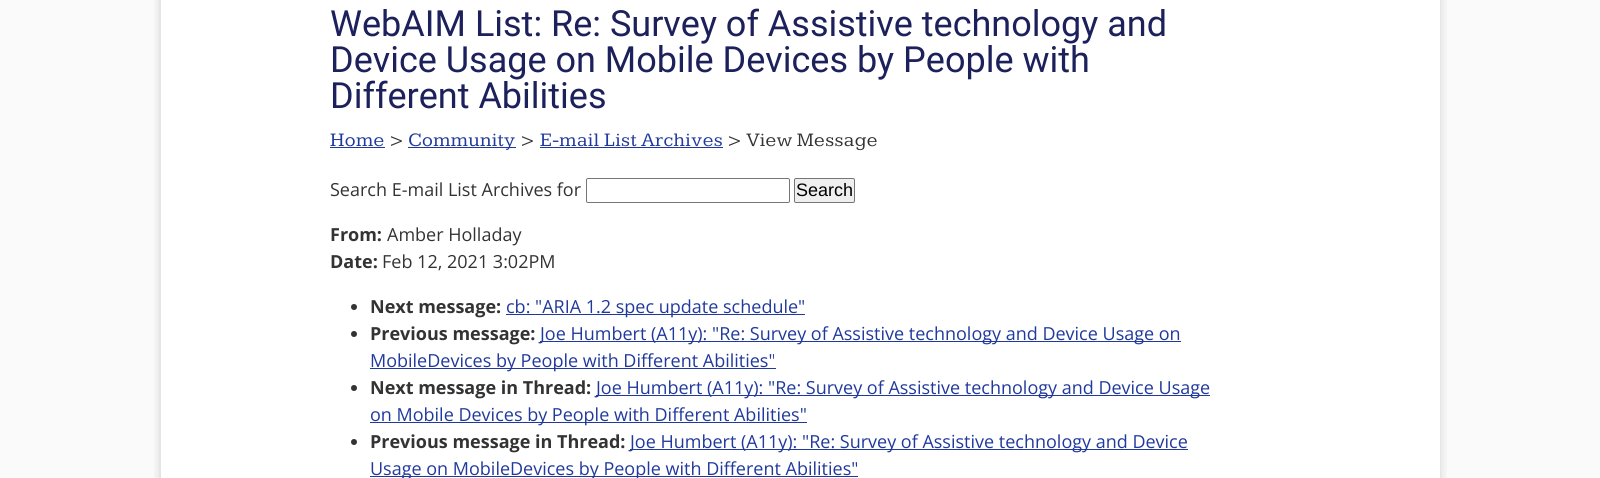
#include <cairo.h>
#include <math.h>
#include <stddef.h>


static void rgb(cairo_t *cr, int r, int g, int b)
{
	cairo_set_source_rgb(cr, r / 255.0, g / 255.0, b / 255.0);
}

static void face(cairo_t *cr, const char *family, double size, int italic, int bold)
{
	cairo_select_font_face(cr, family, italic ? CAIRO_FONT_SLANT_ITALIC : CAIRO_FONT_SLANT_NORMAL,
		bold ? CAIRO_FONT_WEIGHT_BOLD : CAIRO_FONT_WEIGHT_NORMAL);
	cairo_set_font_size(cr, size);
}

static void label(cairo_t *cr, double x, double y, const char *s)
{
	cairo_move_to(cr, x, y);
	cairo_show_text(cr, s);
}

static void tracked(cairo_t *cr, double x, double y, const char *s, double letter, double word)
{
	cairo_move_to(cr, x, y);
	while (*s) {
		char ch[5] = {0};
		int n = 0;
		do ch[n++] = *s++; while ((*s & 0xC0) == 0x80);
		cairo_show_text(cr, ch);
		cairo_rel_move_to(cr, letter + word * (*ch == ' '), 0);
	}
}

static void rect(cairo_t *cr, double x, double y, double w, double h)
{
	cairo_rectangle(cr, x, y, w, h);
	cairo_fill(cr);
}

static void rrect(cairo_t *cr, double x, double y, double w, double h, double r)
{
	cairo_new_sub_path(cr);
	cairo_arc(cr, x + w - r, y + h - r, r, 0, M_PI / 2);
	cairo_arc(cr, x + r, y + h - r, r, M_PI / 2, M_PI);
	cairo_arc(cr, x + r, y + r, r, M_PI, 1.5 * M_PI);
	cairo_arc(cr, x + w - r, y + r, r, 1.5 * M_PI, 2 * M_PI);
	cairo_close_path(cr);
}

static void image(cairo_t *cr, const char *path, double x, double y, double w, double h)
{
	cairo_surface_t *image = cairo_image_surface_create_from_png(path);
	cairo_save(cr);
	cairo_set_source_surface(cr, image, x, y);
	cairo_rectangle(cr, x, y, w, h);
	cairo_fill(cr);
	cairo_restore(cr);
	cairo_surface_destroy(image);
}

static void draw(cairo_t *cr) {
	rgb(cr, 250, 250, 250);
	cairo_paint(cr);
	image(cr, "image0.png", 154, 0, 1293, 478);
	face(cr, "Roboto", 36, 0, 0);
	rgb(cr, 28, 32, 91);
	label(cr, 330, 36, "WebAIM List: Re: Survey of Assistive technology and");
	label(cr, 330, 72, "Device Usage on Mobile Devices by People with");
	label(cr, 330, 108, "Different Abilities");
	face(cr, "Kameron", 19.75, 0, 0);
	rgb(cr, 32, 57, 157);
	tracked(cr, 330, 146, "Home", 0.4, 0);
	rect(cr, 330, 147, 55, 1);
	rgb(cr, 51, 51, 51);
	tracked(cr, 389, 146, ">", 0.4, 0);
	rgb(cr, 32, 57, 157);
	rect(cr, 408, 147, 108, 1);
	tracked(cr, 408, 146, "Community", 0.4, 0);
	rgb(cr, 51, 51, 51);
	tracked(cr, 520, 146, ">", 0.4, 0);
	rgb(cr, 32, 57, 157);
	tracked(cr, 540, 146, "E-mail List Archives", 0.4, 0);
	rect(cr, 540, 147, 183, 1);
	rgb(cr, 51, 51, 51);
	tracked(cr, 727, 146, "> View Message", 0.4, 0);
	face(cr, "Open Sans", 18, 0, 0);
	label(cr, 330, 196, "Search E-mail List Archives for");
	rrect(cr, 586.5, 178.5, 203, 24, 1.5);
	rgb(cr, 118, 118, 118);
	cairo_set_line_width(cr, 1);
	cairo_stroke(cr);
	rgb(cr, 239, 239, 239);
	rrect(cr, 794.5, 178.5, 60, 24, 1.5);
	cairo_fill_preserve(cr);
	rgb(cr, 118, 118, 118);
	cairo_stroke(cr);
	face(cr, "Liberation Sans", 18, 0, 0);
	rgb(cr, 0, 0, 0);
	label(cr, 796, 196, "Search");
	face(cr, "Open Sans", 18, 0, 1);
	rgb(cr, 51, 51, 51);
	label(cr, 330, 241, "From:");
	face(cr, "Open Sans", 18, 0, 0);
	label(cr, 387, 241, "Amber Holladay");
	face(cr, "Open Sans", 18, 0, 1);
	label(cr, 330, 268, "Date:");
	face(cr, "Open Sans", 18, 0, 0);
	label(cr, 382, 268, "Feb 12, 2021 3:02PM");
	cairo_new_path(cr);
	cairo_arc(cr, 354, 307, 3, 0, 2 * M_PI);
	cairo_fill(cr);
	face(cr, "Open Sans", 18, 0, 1);
	label(cr, 370, 313, "Next message:");
	rgb(cr, 32, 57, 157);
	rect(cr, 506, 314, 299, 1);
	face(cr, "Open Sans", 18, 0, 0);
	label(cr, 506, 313, "cb: \"ARIA 1.2 spec update schedule\"");
	rgb(cr, 51, 51, 51);
	cairo_new_path(cr);
	cairo_arc(cr, 354, 334, 3, 0, 2 * M_PI);
	cairo_fill(cr);
	face(cr, "Open Sans", 18, 0, 1);
	label(cr, 370, 340, "Previous message:");
	rgb(cr, 32, 57, 157);
	rect(cr, 540, 341, 641, 1);
	face(cr, "Open Sans", 18, 0, 0);
	label(cr, 540, 340, "Joe Humbert (A11y): \"Re: Survey of Assistive technology and Device Usage on");
	rect(cr, 370, 368, 406, 1);
	label(cr, 370, 367, "MobileDevices by People with Different Abilities\"");
	rgb(cr, 51, 51, 51);
	cairo_new_path(cr);
	cairo_arc(cr, 354, 388, 3, 0, 2 * M_PI);
	cairo_fill(cr);
	face(cr, "Open Sans", 18, 0, 1);
	label(cr, 370, 394, "Next message in Thread:");
	rgb(cr, 32, 57, 157);
	rect(cr, 596, 395, 614, 1);
	face(cr, "Open Sans", 18, 0, 0);
	label(cr, 596, 394, "Joe Humbert (A11y): \"Re: Survey of Assistive technology and Device Usage");
	rect(cr, 370, 422, 437, 1);
	label(cr, 370, 421, "on Mobile Devices by People with Different Abilities\"");
	rgb(cr, 51, 51, 51);
	cairo_new_path(cr);
	cairo_arc(cr, 354, 442, 3, 0, 2 * M_PI);
	cairo_fill(cr);
	face(cr, "Open Sans", 18, 0, 1);
	label(cr, 370, 448, "Previous message in Thread:");
	rgb(cr, 32, 57, 157);
	rect(cr, 630, 449, 558, 1);
	face(cr, "Open Sans", 18, 0, 0);
	label(cr, 630, 448, "Joe Humbert (A11y): \"Re: Survey of Assistive technology and Device");
	rect(cr, 370, 476, 488, 1);
	label(cr, 370, 475, "Usage on MobileDevices by People with Different Abilities\"");
}

int main(void) {
	cairo_surface_t *surface = cairo_image_surface_create(CAIRO_FORMAT_RGB24, 1600, 478);
	cairo_t *cr = cairo_create(surface);
	cairo_font_options_t *options = cairo_font_options_create();
	cairo_font_options_set_hint_metrics(options, CAIRO_HINT_METRICS_OFF);
	cairo_font_options_set_hint_style(options, CAIRO_HINT_STYLE_NONE);
	cairo_set_font_options(cr, options);
	cairo_set_miter_limit(cr, 4);
	draw(cr);
	cairo_surface_write_to_png(surface, "render.png");
	cairo_font_options_destroy(options);
	cairo_destroy(cr);
	cairo_surface_destroy(surface);
	return 0;
}
